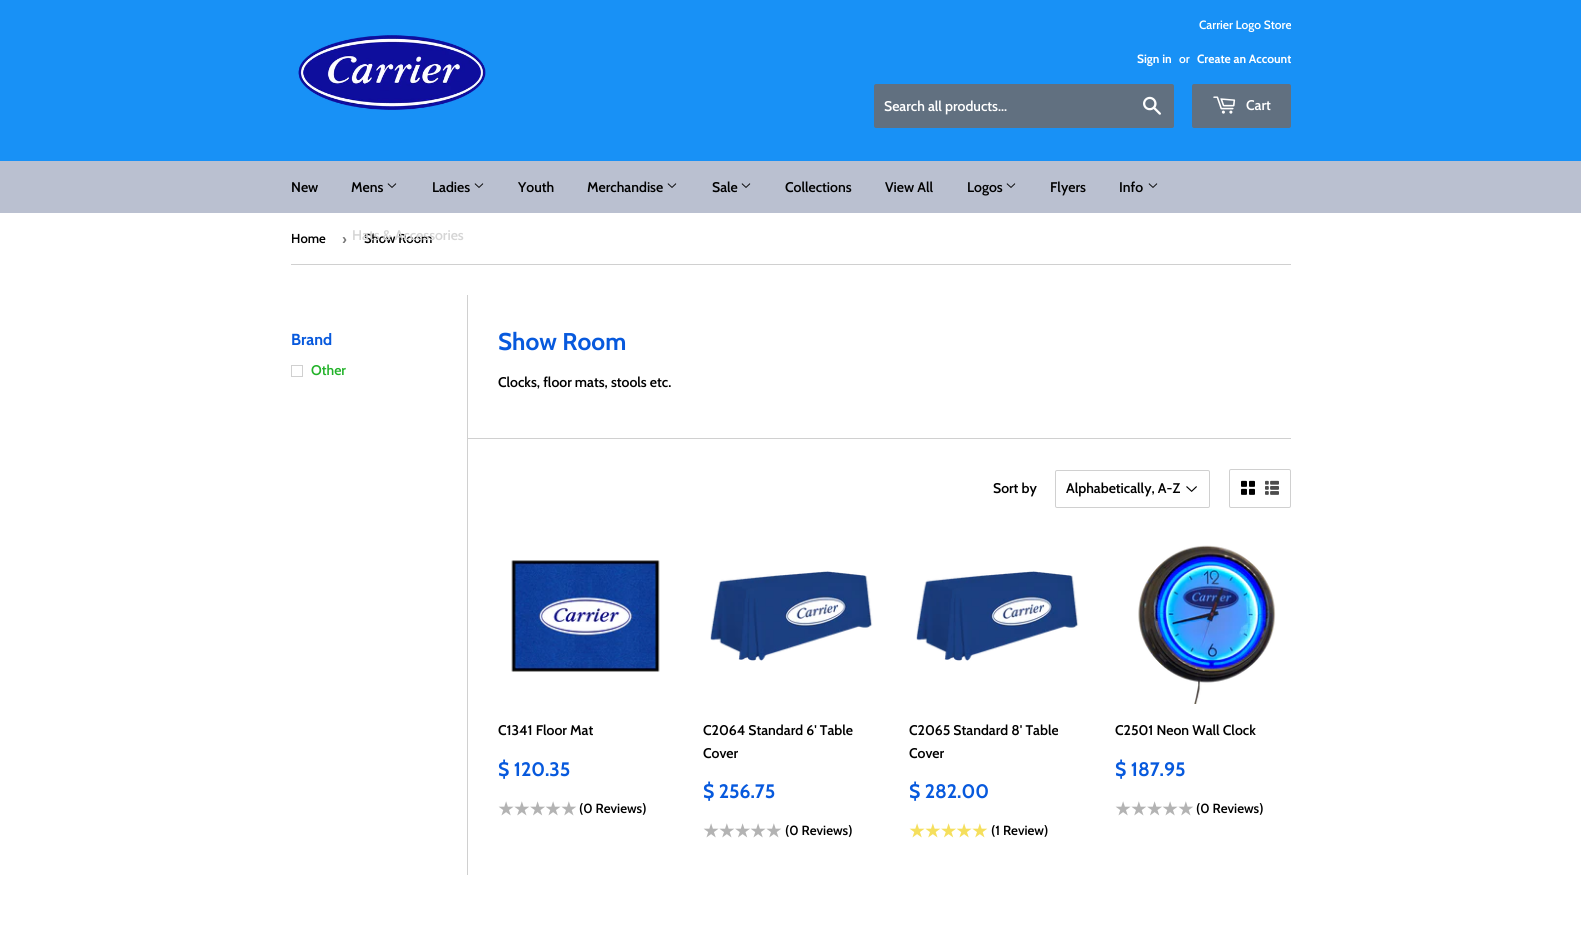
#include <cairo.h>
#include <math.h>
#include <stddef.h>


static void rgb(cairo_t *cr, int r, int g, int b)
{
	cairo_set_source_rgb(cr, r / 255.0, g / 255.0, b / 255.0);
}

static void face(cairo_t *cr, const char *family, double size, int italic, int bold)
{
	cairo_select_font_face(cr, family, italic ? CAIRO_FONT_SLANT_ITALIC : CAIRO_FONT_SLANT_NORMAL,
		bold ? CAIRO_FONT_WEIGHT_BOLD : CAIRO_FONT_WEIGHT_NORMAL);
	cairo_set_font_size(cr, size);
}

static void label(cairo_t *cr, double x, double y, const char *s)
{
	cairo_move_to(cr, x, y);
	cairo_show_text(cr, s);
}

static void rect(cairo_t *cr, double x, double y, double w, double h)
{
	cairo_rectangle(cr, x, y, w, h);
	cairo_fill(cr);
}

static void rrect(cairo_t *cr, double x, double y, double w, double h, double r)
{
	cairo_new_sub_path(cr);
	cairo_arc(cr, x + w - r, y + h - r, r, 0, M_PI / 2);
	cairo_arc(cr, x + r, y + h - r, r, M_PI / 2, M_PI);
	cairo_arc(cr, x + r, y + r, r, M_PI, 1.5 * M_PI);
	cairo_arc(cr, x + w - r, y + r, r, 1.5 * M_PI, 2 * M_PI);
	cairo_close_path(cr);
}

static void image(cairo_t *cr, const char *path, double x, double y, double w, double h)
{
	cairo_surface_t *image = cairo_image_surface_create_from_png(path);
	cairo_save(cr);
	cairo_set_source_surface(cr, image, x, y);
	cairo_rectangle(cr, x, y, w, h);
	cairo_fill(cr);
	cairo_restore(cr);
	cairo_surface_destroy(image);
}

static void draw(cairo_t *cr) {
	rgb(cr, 255, 255, 255);
	cairo_paint(cr);
	rgb(cr, 24, 145, 246);
	rect(cr, 0, 0, 1581, 161);
	image(cr, "image0.png", 298, 35, 188, 75);
	face(cr, "Cabin SemiBold", 12, 0, 0);
	rgb(cr, 255, 255, 255);
	label(cr, 1199, 29, "Carrier Logo Store");
	face(cr, "Cabin", 12, 0, 1);
	label(cr, 1137, 63, "Sign in");
	face(cr, "Cabin SemiBold", 12, 0, 0);
	label(cr, 1179, 63, "or");
	face(cr, "Cabin", 12, 0, 1);
	label(cr, 1197, 63, "Create an Account");
	rgb(cr, 97, 112, 128);
	rrect(cr, 874, 84, 300, 44, 2);
	cairo_fill(cr);
	face(cr, "Cabin SemiBold", 14, 0, 0);
	rgb(cr, 255, 255, 255);
	label(cr, 884, 111, "Search all products...");
	image(cr, "image1.png", 1143, 96, 18, 19);
	rgb(cr, 97, 112, 128);
	rrect(cr, 1192, 84, 99, 44, 2);
	cairo_fill(cr);
	image(cr, "image2.png", 1213, 96, 23, 18);
	rgb(cr, 255, 255, 255);
	label(cr, 1246, 110, "Cart");
	rgb(cr, 186, 192, 208);
	rect(cr, 0, 161, 1581, 52);
	rgb(cr, 0, 0, 0);
	label(cr, 291, 192, "New");
	label(cr, 432, 192, "Ladies");
	image(cr, "image3.png", 474, 183, 10, 5);
	label(cr, 518, 192, "Youth");
	label(cr, 587, 192, "Merchandise");
	image(cr, "image3.png", 667, 183, 10, 5);
	label(cr, 712, 192, "Sale");
	image(cr, "image3.png", 741, 183, 10, 5);
	label(cr, 785, 192, "Collections");
	label(cr, 885, 192, "View All");
	label(cr, 1050, 192, "Flyers");
	label(cr, 1119, 192, "Info");
	image(cr, "image3.png", 1148, 183, 10, 5);
	label(cr, 351, 192, "Mens");
	image(cr, "image3.png", 387, 183, 10, 5);
	face(cr, "Cabin SemiBold", 13, 0, 0);
	label(cr, 364, 243, "Show Room");
	face(cr, "Cabin SemiBold", 14, 0, 0);
	rgb(cr, 213, 213, 213);
	label(cr, 352, 240, "Hats & Accessories");
	rgb(cr, 0, 0, 0);
	label(cr, 967, 192, "Logos");
	image(cr, "image3.png", 1006, 183, 10, 5);
	rgb(cr, 208, 208, 208);
	rect(cr, 291, 264, 1000, 1);
	face(cr, "Cabin SemiBold", 13, 0, 0);
	rgb(cr, 0, 0, 0);
	label(cr, 291, 243, "Home");
	face(cr, "Liberation Sans", 15, 0, 1);
	rgb(cr, 118, 118, 118);
	label(cr, 342, 244, "›");
	face(cr, "Cabin", 16, 0, 1);
	rgb(cr, 7, 89, 221);
	label(cr, 291, 345, "Brand");
	cairo_rectangle(cr, 291.5, 365.5, 11, 11);
	rgb(cr, 208, 208, 208);
	cairo_set_line_width(cr, 1);
	cairo_stroke(cr);
	face(cr, "Cabin SemiBold", 14, 0, 0);
	rgb(cr, 34, 178, 41);
	label(cr, 311, 375, "Other");
	rgb(cr, 208, 208, 208);
	rect(cr, 467, 295, 1, 580);
	face(cr, "Cabin", 24.25, 0, 1);
	rgb(cr, 7, 89, 221);
	label(cr, 498, 350, "Show Room");
	face(cr, "Cabin SemiBold", 14, 0, 0);
	rgb(cr, 0, 0, 0);
	label(cr, 498, 387, "Clocks, floor mats, stools etc.");
	rgb(cr, 208, 208, 208);
	rect(cr, 468, 438, 823, 1);
	rgb(cr, 0, 0, 0);
	label(cr, 993, 493, "Sort by");
	image(cr, "image4.png", 1186, 486, 11, 6);
	rrect(cr, 1055.5, 470.5, 154, 37, 1.5);
	rgb(cr, 208, 208, 208);
	cairo_stroke(cr);
	rgb(cr, 0, 0, 0);
	label(cr, 1066, 493, "Alphabetically, A-Z");
	rrect(cr, 1229.5, 469.5, 61, 38, 1.5);
	rgb(cr, 208, 208, 208);
	cairo_stroke(cr);
	image(cr, "image5.png", 1241, 480, 14, 15);
	image(cr, "image6.png", 1265, 480, 14, 15);
	image(cr, "image7.png", 511, 560, 149, 112);
	rgb(cr, 0, 0, 0);
	label(cr, 498, 735, "C1341 Floor Mat");
	face(cr, "Cabin", 19.5, 0, 1);
	rgb(cr, 7, 89, 221);
	label(cr, 498, 776, "$ 120.35");
	face(cr, "DejaVu Sans", 17.5, 0, 1);
	rgb(cr, 179, 179, 179);
	label(cr, 498, 815, "★★★★★");
	face(cr, "Cabin SemiBold", 13.25, 0, 0);
	rgb(cr, 0, 0, 0);
	label(cr, 579, 813, "(0 Reviews)");
	image(cr, "image8.png", 710, 571, 163, 90);
	face(cr, "Cabin SemiBold", 14, 0, 0);
	label(cr, 703, 735, "C2064 Standard 6' Table");
	label(cr, 703, 758, "Cover");
	face(cr, "Cabin", 19.5, 0, 1);
	rgb(cr, 7, 89, 221);
	label(cr, 703, 798, "$ 256.75");
	face(cr, "DejaVu Sans", 17.5, 0, 1);
	rgb(cr, 179, 179, 179);
	label(cr, 703, 837, "★★★★★");
	face(cr, "Cabin SemiBold", 13.25, 0, 0);
	rgb(cr, 0, 0, 0);
	label(cr, 785, 835, "(0 Reviews)");
	image(cr, "image9.png", 916, 571, 163, 90);
	face(cr, "Cabin SemiBold", 14, 0, 0);
	label(cr, 909, 735, "C2065 Standard 8' Table");
	label(cr, 909, 758, "Cover");
	face(cr, "Cabin", 19.5, 0, 1);
	rgb(cr, 7, 89, 221);
	label(cr, 909, 798, "$ 282.00");
	face(cr, "DejaVu Sans", 17.5, 0, 1);
	rgb(cr, 245, 223, 93);
	label(cr, 909, 837, "★★★★★");
	face(cr, "Cabin SemiBold", 13.25, 0, 0);
	rgb(cr, 0, 0, 0);
	label(cr, 991, 835, "(1 Review)");
	image(cr, "image10.png", 1138, 545, 138, 159);
	face(cr, "Cabin SemiBold", 14, 0, 0);
	label(cr, 1115, 735, "C2501 Neon Wall Clock");
	face(cr, "Cabin", 19.5, 0, 1);
	rgb(cr, 7, 89, 221);
	label(cr, 1115, 776, "$ 187.95");
	face(cr, "DejaVu Sans", 17.5, 0, 1);
	rgb(cr, 179, 179, 179);
	label(cr, 1115, 815, "★★★★★");
	face(cr, "Cabin SemiBold", 13.25, 0, 0);
	rgb(cr, 0, 0, 0);
	label(cr, 1196, 813, "(0 Reviews)");
}

int main(void) {
	cairo_surface_t *surface = cairo_image_surface_create(CAIRO_FORMAT_RGB24, 1581, 928);
	cairo_t *cr = cairo_create(surface);
	cairo_font_options_t *options = cairo_font_options_create();
	cairo_font_options_set_hint_metrics(options, CAIRO_HINT_METRICS_OFF);
	cairo_font_options_set_hint_style(options, CAIRO_HINT_STYLE_NONE);
	cairo_set_font_options(cr, options);
	cairo_set_miter_limit(cr, 4);
	draw(cr);
	cairo_surface_write_to_png(surface, "render.png");
	cairo_font_options_destroy(options);
	cairo_destroy(cr);
	cairo_surface_destroy(surface);
	return 0;
}
